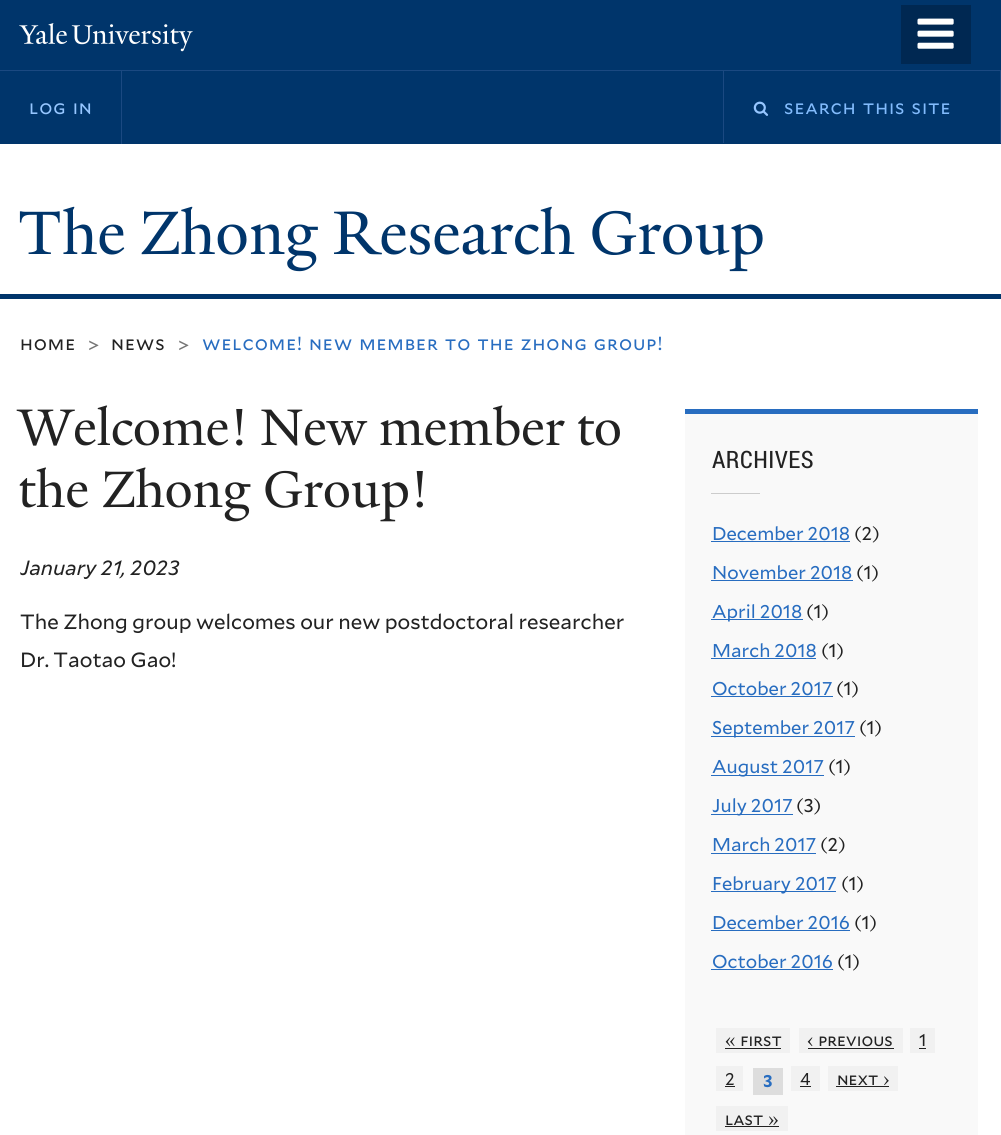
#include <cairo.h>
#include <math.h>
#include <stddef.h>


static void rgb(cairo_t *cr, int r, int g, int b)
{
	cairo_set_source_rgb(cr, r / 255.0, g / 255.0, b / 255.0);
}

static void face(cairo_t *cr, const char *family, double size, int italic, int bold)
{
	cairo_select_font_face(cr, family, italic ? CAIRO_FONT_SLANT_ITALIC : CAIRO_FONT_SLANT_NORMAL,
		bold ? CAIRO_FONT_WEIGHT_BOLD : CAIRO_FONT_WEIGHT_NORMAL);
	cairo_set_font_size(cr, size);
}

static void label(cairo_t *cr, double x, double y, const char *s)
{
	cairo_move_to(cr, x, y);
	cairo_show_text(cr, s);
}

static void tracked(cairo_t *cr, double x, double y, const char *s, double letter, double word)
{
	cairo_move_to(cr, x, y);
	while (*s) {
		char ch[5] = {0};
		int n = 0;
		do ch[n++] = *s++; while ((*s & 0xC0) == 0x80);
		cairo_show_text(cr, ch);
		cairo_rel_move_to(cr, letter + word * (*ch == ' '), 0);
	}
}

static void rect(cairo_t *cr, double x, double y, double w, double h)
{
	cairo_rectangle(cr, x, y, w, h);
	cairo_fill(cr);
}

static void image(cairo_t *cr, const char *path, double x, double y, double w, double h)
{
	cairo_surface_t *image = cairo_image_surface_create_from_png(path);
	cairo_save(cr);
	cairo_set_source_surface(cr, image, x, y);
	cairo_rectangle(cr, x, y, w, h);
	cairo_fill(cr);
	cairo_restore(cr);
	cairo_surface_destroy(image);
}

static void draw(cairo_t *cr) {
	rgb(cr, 255, 255, 255);
	cairo_paint(cr);
	rgb(cr, 0, 53, 107);
	rect(cr, 0, 0, 1001, 144);
	rgb(cr, 27, 73, 129);
	rect(cr, 0, 70, 1001, 1);
	image(cr, "image0.png", 19, 23, 48, 21);
	image(cr, "image1.png", 71, 24, 122, 28);
	rgb(cr, 0, 40, 82);
	rect(cr, 901, 5, 70, 59);
	image(cr, "image2.png", 917, 18, 37, 31);
	rgb(cr, 27, 73, 129);
	rect(cr, 121, 71, 1, 73);
	face(cr, "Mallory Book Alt", 19, 0, 0);
	rgb(cr, 150, 198, 255);
	tracked(cr, 29, 114, "log in", 0.95, 1);
	rgb(cr, 27, 73, 129);
	rect(cr, 1000, 71, 1, 72);
	rect(cr, 723, 71, 1, 72);
	image(cr, "image3.png", 753, 101, 16, 15);
	rgb(cr, 130, 187, 252);
	tracked(cr, 784, 114, "search this site", 0.95, 1);
	face(cr, "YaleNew", 66.6, 0, 0);
	rgb(cr, 0, 53, 107);
	tracked(cr, 18, 254, "The Zhong Research Group", 0, -0.5);
	rect(cr, 0, 294, 1001, 5);
	face(cr, "Mallory Book Alt", 19, 0, 0);
	rgb(cr, 34, 34, 34);
	tracked(cr, 20, 350, "home", 0.95, 0);
	face(cr, "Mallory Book", 19, 0, 0);
	rgb(cr, 118, 118, 118);
	tracked(cr, 88, 352, ">", 0.95, 0);
	face(cr, "Mallory Book Alt", 19, 0, 0);
	rgb(cr, 34, 34, 34);
	tracked(cr, 111, 350, "news", 0.95, 0);
	face(cr, "Mallory Book", 19, 0, 0);
	rgb(cr, 118, 118, 118);
	tracked(cr, 178, 352, ">", 0.95, 0);
	face(cr, "Mallory Book Alt", 19, 0, 0);
	rgb(cr, 40, 109, 192);
	tracked(cr, 202, 350, "welcome! new member to the zhong group!", 0.95, 1);
	face(cr, "YaleNew", 55.75, 0, 0);
	rgb(cr, 34, 34, 34);
	tracked(cr, 18, 445, "Welcome! New member to", 0, -1);
	label(cr, 18, 507, "the Zhong Group!");
	face(cr, "Mallory Book", 20.6, 1, 0);
	label(cr, 20, 575, "January 21, 2023");
	face(cr, "Mallory Book", 20.6, 0, 0);
	label(cr, 20, 629, "The Zhong group welcomes our new postdoctoral researcher");
	label(cr, 20, 667, "Dr. Taotao Gao!");
	rgb(cr, 40, 109, 192);
	rect(cr, 685, 409, 293, 5);
	rgb(cr, 249, 249, 249);
	rect(cr, 685, 414, 293, 721);
	face(cr, "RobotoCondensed", 24, 0, 0);
	rgb(cr, 34, 34, 34);
	tracked(cr, 712, 468, "ARCHIVES", 0.5, 0);
	rgb(cr, 204, 204, 204);
	rect(cr, 711, 493, 49, 1);
	face(cr, "Mallory Book", 18.5, 0, 0);
	rgb(cr, 40, 109, 192);
	label(cr, 712, 540, "December 2018");
	rect(cr, 711, 541, 139, 1);
	rgb(cr, 34, 34, 34);
	label(cr, 854, 540, "(2)");
	rgb(cr, 40, 109, 192);
	label(cr, 712, 579, "November 2018");
	rect(cr, 711, 580, 142, 1);
	rgb(cr, 34, 34, 34);
	label(cr, 856, 579, "(1)");
	rgb(cr, 40, 109, 192);
	rect(cr, 711, 619, 92, 1);
	label(cr, 712, 618, "April 2018");
	rgb(cr, 34, 34, 34);
	label(cr, 806, 618, "(1)");
	rgb(cr, 40, 109, 192);
	label(cr, 712, 657, "March 2018");
	rect(cr, 711, 658, 105, 1);
	rgb(cr, 34, 34, 34);
	label(cr, 821, 657, "(1)");
	rgb(cr, 40, 109, 192);
	label(cr, 712, 695, "October 2017");
	rect(cr, 711, 696, 122, 1);
	rgb(cr, 34, 34, 34);
	label(cr, 836, 695, "(1)");
	rgb(cr, 40, 109, 192);
	rect(cr, 711, 736, 144, 1);
	label(cr, 712, 734, "September 2017");
	rgb(cr, 34, 34, 34);
	label(cr, 859, 734, "(1)");
	rgb(cr, 40, 109, 192);
	rect(cr, 711, 775, 113, 1);
	label(cr, 712, 773, "August 2017");
	rgb(cr, 34, 34, 34);
	label(cr, 828, 773, "(1)");
	rgb(cr, 40, 109, 192);
	rect(cr, 711, 814, 82, 1);
	label(cr, 712, 812, "July 2017");
	rgb(cr, 34, 34, 34);
	label(cr, 796, 812, "(3)");
	rgb(cr, 40, 109, 192);
	label(cr, 712, 851, "March 2017");
	rect(cr, 711, 853, 105, 1);
	rgb(cr, 34, 34, 34);
	label(cr, 820, 851, "(2)");
	rgb(cr, 40, 109, 192);
	rect(cr, 711, 891, 125, 1);
	label(cr, 712, 890, "February 2017");
	rgb(cr, 34, 34, 34);
	label(cr, 841, 890, "(1)");
	rgb(cr, 40, 109, 192);
	label(cr, 712, 929, "December 2016");
	rect(cr, 711, 930, 139, 1);
	rgb(cr, 34, 34, 34);
	label(cr, 854, 929, "(1)");
	rgb(cr, 40, 109, 192);
	label(cr, 712, 968, "October 2016");
	rect(cr, 711, 969, 122, 1);
	rgb(cr, 34, 34, 34);
	label(cr, 837, 968, "(1)");
	rgb(cr, 241, 241, 241);
	rect(cr, 716, 1028, 74, 25);
	face(cr, "Mallory Book Alt", 17, 0, 0);
	rgb(cr, 34, 34, 34);
	tracked(cr, 725, 1046, "« first", 0, 1);
	rect(cr, 725, 1048, 56, 1);
	rgb(cr, 241, 241, 241);
	rect(cr, 799, 1028, 104, 25);
	rgb(cr, 34, 34, 34);
	tracked(cr, 807, 1046, "‹ previous", 0, 1);
	rect(cr, 808, 1048, 86, 1);
	rgb(cr, 241, 241, 241);
	rect(cr, 910, 1028, 25, 25);
	face(cr, "Mallory Book", 17, 0, 0);
	rgb(cr, 34, 34, 34);
	label(cr, 919, 1046, "1");
	rect(cr, 919, 1048, 7, 1);
	rgb(cr, 241, 241, 241);
	rect(cr, 716, 1066, 27, 25);
	rgb(cr, 34, 34, 34);
	label(cr, 725, 1085, "2");
	rect(cr, 725, 1086, 10, 1);
	rgb(cr, 221, 221, 221);
	rect(cr, 753, 1068, 30, 27);
	face(cr, "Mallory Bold", 17, 0, 1);
	rgb(cr, 40, 109, 192);
	label(cr, 763, 1087, "3");
	rgb(cr, 241, 241, 241);
	rect(cr, 791, 1066, 29, 25);
	face(cr, "Mallory Book", 17, 0, 0);
	rgb(cr, 34, 34, 34);
	label(cr, 800, 1085, "4");
	rect(cr, 800, 1086, 11, 1);
	rgb(cr, 241, 241, 241);
	rect(cr, 828, 1066, 70, 25);
	face(cr, "Mallory Book Alt", 17, 0, 0);
	rgb(cr, 34, 34, 34);
	tracked(cr, 837, 1085, "next ›", 0, 1);
	rect(cr, 836, 1086, 53, 1);
	rgb(cr, 241, 241, 241);
	rect(cr, 716, 1106, 72, 25);
	rgb(cr, 34, 34, 34);
	tracked(cr, 725, 1125, "last »", 0, 1);
	rect(cr, 725, 1126, 54, 1);
}

int main(void) {
	cairo_surface_t *surface = cairo_image_surface_create(CAIRO_FORMAT_RGB24, 1001, 1135);
	cairo_t *cr = cairo_create(surface);
	cairo_font_options_t *options = cairo_font_options_create();
	cairo_font_options_set_hint_metrics(options, CAIRO_HINT_METRICS_OFF);
	cairo_font_options_set_hint_style(options, CAIRO_HINT_STYLE_NONE);
	cairo_set_font_options(cr, options);
	cairo_set_miter_limit(cr, 4);
	draw(cr);
	cairo_surface_write_to_png(surface, "render.png");
	cairo_font_options_destroy(options);
	cairo_destroy(cr);
	cairo_surface_destroy(surface);
	return 0;
}
